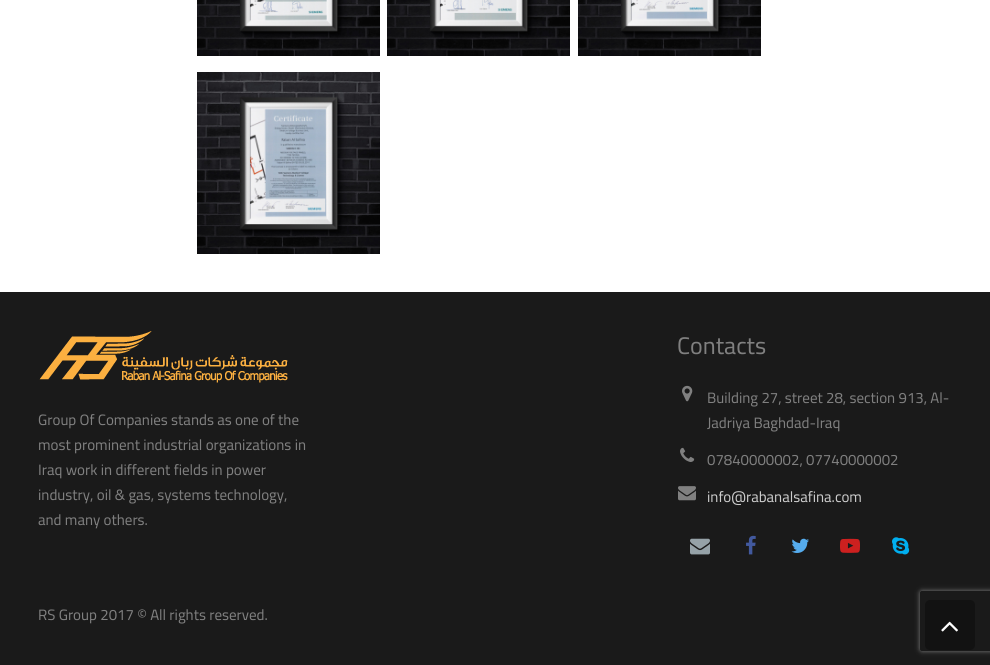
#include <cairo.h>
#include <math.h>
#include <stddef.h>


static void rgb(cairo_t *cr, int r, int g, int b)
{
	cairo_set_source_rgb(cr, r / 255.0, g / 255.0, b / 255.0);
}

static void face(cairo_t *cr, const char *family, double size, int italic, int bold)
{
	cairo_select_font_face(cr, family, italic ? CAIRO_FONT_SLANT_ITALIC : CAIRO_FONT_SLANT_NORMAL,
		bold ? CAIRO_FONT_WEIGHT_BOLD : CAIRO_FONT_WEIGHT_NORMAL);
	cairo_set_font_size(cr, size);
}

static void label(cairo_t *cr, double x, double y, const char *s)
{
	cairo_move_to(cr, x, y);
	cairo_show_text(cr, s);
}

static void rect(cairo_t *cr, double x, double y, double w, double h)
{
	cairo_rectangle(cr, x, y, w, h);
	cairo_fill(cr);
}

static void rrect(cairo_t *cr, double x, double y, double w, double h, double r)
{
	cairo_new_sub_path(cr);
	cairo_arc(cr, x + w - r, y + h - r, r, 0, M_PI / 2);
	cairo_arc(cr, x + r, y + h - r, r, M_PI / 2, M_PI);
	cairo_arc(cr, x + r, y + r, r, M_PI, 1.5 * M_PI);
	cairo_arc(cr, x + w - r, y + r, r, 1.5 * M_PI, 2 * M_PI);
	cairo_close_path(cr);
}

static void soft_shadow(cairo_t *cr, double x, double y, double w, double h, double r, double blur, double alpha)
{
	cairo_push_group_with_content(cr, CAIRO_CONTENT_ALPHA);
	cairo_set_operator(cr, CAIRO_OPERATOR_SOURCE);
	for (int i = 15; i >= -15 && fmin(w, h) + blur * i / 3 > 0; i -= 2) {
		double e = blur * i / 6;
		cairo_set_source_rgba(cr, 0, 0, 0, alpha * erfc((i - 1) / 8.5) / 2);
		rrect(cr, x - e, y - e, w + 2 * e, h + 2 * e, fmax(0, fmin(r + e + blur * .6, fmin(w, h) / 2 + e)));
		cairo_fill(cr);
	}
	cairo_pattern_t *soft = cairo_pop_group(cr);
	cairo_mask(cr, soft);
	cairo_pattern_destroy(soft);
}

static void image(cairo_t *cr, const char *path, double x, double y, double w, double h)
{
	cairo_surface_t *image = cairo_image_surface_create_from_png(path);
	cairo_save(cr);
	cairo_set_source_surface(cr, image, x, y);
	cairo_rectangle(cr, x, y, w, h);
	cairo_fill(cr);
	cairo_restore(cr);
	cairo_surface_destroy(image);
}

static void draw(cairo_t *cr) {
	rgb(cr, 255, 255, 255);
	cairo_paint(cr);
	image(cr, "image0.png", 197, 0, 183, 56);
	image(cr, "image1.png", 387, 0, 183, 56);
	image(cr, "image2.png", 578, 0, 183, 56);
	image(cr, "image3.png", 197, 72, 183, 182);
	rgb(cr, 26, 26, 26);
	rect(cr, 0, 292, 990, 373);
	image(cr, "image4.png", 39, 331, 249, 52);
	face(cr, "Cairo", 15, 0, 0);
	rgb(cr, 128, 128, 128);
	label(cr, 38, 425, "Group Of Companies stands as one of the");
	label(cr, 38, 450, "most prominent industrial organizations in");
	label(cr, 38, 475, "Iraq work in different fields in power");
	label(cr, 38, 500, "industry, oil & gas, systems technology,");
	label(cr, 38, 525, "and many others.");
	face(cr, "Cairo", 24, 0, 0);
	label(cr, 677, 354, "Contacts");
	image(cr, "image5.png", 682, 385, 11, 17);
	face(cr, "Cairo", 15, 0, 0);
	label(cr, 707, 403, "Building 27, street 28, section 913, Al-");
	label(cr, 707, 428, "Jadriya Baghdad-Iraq");
	image(cr, "image6.png", 680, 447, 15, 15);
	label(cr, 707, 465, "07840000002, 07740000002");
	image(cr, "image7.png", 678, 486, 18, 15);
	rgb(cr, 204, 204, 204);
	label(cr, 707, 502, "info@rabanalsafina.com");
	image(cr, "image8.png", 690, 538, 20, 17);
	image(cr, "image9.png", 746, 535, 10, 20);
	image(cr, "image10.png", 791, 538, 18, 15);
	image(cr, "image11.png", 840, 538, 20, 15);
	image(cr, "image12.png", 892, 537, 18, 18);
	rgb(cr, 128, 128, 128);
	label(cr, 38, 620, "RS Group 2017 © All rights reserved.");
	cairo_save(cr);
	cairo_set_fill_rule(cr, CAIRO_FILL_RULE_EVEN_ODD);
	cairo_new_path(cr);
	cairo_move_to(cr, 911, 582);
	cairo_line_to(cr, 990, 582);
	cairo_line_to(cr, 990, 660);
	cairo_line_to(cr, 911, 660);
	cairo_close_path(cr);
	cairo_move_to(cr, 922, 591);
	cairo_line_to(cr, 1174, 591);
	cairo_curve_to(cr, 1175, 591, 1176, 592, 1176, 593);
	cairo_line_to(cr, 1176, 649);
	cairo_curve_to(cr, 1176, 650, 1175, 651, 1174, 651);
	cairo_line_to(cr, 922, 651);
	cairo_curve_to(cr, 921, 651, 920, 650, 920, 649);
	cairo_line_to(cr, 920, 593);
	cairo_curve_to(cr, 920, 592, 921, 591, 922, 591);
	cairo_close_path(cr);
	cairo_clip(cr);
	rgb(cr, 128, 128, 128);
	soft_shadow(cr, 920, 591, 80, 60, 2, 2.5, 1);
	cairo_restore(cr);
	rgb(cr, 18, 18, 18);
	rrect(cr, 925, 600, 50, 50, 5);
	cairo_fill(cr);
	image(cr, "image13.png", 941, 621, 17, 11);
}

int main(void) {
	cairo_surface_t *surface = cairo_image_surface_create(CAIRO_FORMAT_RGB24, 990, 665);
	cairo_t *cr = cairo_create(surface);
	cairo_font_options_t *options = cairo_font_options_create();
	cairo_font_options_set_hint_metrics(options, CAIRO_HINT_METRICS_OFF);
	cairo_font_options_set_hint_style(options, CAIRO_HINT_STYLE_NONE);
	cairo_set_font_options(cr, options);
	cairo_set_miter_limit(cr, 4);
	draw(cr);
	cairo_surface_write_to_png(surface, "render.png");
	cairo_font_options_destroy(options);
	cairo_destroy(cr);
	cairo_surface_destroy(surface);
	return 0;
}
